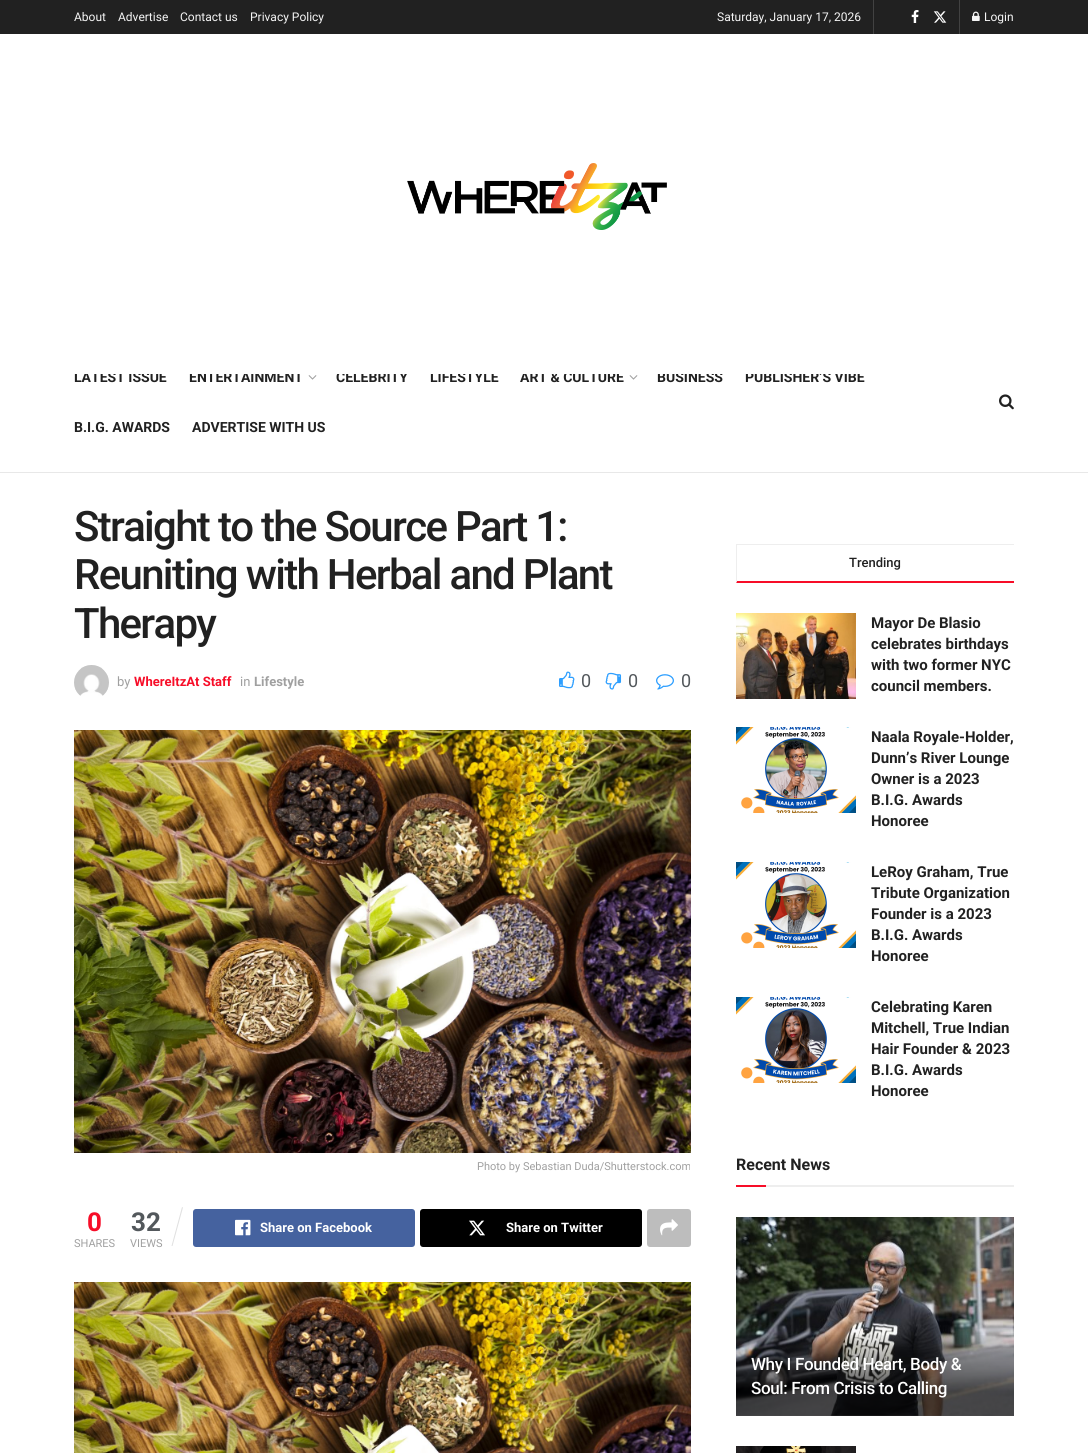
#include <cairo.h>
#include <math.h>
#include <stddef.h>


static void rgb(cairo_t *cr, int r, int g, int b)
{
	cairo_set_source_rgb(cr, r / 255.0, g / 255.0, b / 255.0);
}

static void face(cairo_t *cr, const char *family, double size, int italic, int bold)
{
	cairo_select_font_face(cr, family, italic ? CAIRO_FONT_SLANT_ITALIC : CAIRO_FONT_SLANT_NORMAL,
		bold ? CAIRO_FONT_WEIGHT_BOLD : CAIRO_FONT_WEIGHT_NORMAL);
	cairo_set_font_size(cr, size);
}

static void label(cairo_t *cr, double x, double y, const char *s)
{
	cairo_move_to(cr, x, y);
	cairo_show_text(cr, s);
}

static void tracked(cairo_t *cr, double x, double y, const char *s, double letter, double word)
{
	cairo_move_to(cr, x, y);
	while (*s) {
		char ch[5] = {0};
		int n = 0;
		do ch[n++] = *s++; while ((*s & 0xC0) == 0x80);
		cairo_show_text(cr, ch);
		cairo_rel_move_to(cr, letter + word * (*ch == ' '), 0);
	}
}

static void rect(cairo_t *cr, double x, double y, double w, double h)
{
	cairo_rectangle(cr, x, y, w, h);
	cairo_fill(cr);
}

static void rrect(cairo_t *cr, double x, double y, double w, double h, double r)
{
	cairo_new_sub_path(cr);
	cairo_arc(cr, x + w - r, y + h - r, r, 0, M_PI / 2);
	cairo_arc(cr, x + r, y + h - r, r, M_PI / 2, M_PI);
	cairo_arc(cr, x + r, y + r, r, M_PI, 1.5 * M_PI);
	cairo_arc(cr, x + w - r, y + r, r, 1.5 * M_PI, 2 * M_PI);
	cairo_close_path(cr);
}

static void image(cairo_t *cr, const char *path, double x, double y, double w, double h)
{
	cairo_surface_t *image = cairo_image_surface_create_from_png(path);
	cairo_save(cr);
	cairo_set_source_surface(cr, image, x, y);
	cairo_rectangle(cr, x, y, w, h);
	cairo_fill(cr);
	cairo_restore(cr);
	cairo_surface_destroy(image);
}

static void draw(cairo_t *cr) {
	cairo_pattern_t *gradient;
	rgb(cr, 255, 255, 255);
	cairo_paint(cr);
	rgb(cr, 33, 33, 33);
	rect(cr, 0, 0, 1088, 34);
	rgb(cr, 66, 66, 66);
	rect(cr, 959, 0, 1, 34);
	face(cr, "Roboto", 12, 0, 0);
	rgb(cr, 245, 245, 245);
	label(cr, 74, 21, "About");
	label(cr, 118, 21, "Advertise");
	label(cr, 180, 21, "Contact us");
	label(cr, 250, 21, "Privacy Policy");
	rgb(cr, 66, 66, 66);
	rect(cr, 873, 0, 1, 34);
	rgb(cr, 245, 245, 245);
	label(cr, 717, 21, "Saturday, January 17, 2026");
	image(cr, "image0.png", 911, 10, 8, 13);
	image(cr, "image1.png", 933, 11, 14, 12);
	image(cr, "image2.png", 972, 11, 8, 10);
	label(cr, 984, 21, "Login");
	face(cr, "Roboto", 14, 0, 1);
	rgb(cr, 33, 33, 33);
	label(cr, 74, 382, "LATEST ISSUE");
	label(cr, 189, 382, "ENTERTAINMENT");
	label(cr, 336, 382, "CELEBRITY");
	label(cr, 430, 382, "LIFESTYLE");
	label(cr, 520, 382, "ART & CULTURE");
	label(cr, 657, 382, "BUSINESS");
	label(cr, 745, 382, "PUBLISHER’S VIBE");
	rgb(cr, 255, 255, 255);
	rect(cr, 74, 371, 791, 3);
	image(cr, "image3.png", 407, 163, 260, 67);
	rgb(cr, 232, 232, 232);
	rect(cr, 0, 472, 1088, 1);
	image(cr, "image4.png", 308, 375, 9, 5);
	image(cr, "image4.png", 629, 375, 9, 5);
	rgb(cr, 33, 33, 33);
	label(cr, 74, 432, "B.I.G. AWARDS");
	label(cr, 192, 432, "ADVERTISE WITH US");
	image(cr, "image5.png", 999, 394, 15, 16);
	face(cr, "Roboto Medium", 42, 0, 0);
	tracked(cr, 74, 541, "Straight to the Source Part 1:", -1.7, 0);
	tracked(cr, 74, 589, "Reuniting with Herbal and Plant", -1.7, 0);
	tracked(cr, 74, 638, "Therapy", -1.7, 0);
	image(cr, "image6.png", 74, 665, 35, 31);
	face(cr, "Roboto", 13, 0, 0);
	rgb(cr, 160, 160, 160);
	label(cr, 117, 686, "by");
	face(cr, "Roboto", 13, 0, 1);
	rgb(cr, 247, 13, 40);
	label(cr, 134, 686, "WhereItzAt Staff");
	face(cr, "Roboto", 13, 0, 0);
	rgb(cr, 160, 160, 160);
	label(cr, 240, 686, "in");
	face(cr, "Roboto", 13, 0, 1);
	label(cr, 254, 686, "Lifestyle");
	image(cr, "image7.png", 559, 671, 16, 18);
	face(cr, "Roboto", 18, 0, 0);
	rgb(cr, 83, 88, 92);
	label(cr, 581, 687, "0");
	image(cr, "image8.png", 605, 672, 17, 18);
	label(cr, 628, 687, "0");
	image(cr, "image9.png", 656, 674, 18, 16);
	label(cr, 681, 687, "0");
	image(cr, "image10.png", 74, 730, 617, 423);
	face(cr, "Roboto", 11, 0, 0);
	rgb(cr, 160, 160, 160);
	label(cr, 477, 1170, "Photo by Sebastian Duda/Shutterstock.com");
	face(cr, "Roboto", 26, 0, 1);
	rgb(cr, 247, 13, 40);
	label(cr, 87, 1231, "0");
	face(cr, "Roboto", 11, 0, 0);
	rgb(cr, 160, 160, 160);
	label(cr, 74, 1247, "SHARES");
	face(cr, "Roboto", 26, 0, 1);
	rgb(cr, 83, 88, 92);
	label(cr, 131, 1231, "32");
	rgb(cr, 224, 224, 224);
	cairo_new_path(cr);
	cairo_move_to(cr, 182, 1207);
	cairo_line_to(cr, 183, 1207.5);
	cairo_line_to(cr, 172.5, 1246);
	cairo_line_to(cr, 171.5, 1246);
	cairo_close_path(cr);
	cairo_fill(cr);
	face(cr, "Roboto", 11, 0, 0);
	rgb(cr, 160, 160, 160);
	label(cr, 130, 1247, "VIEWS");
	rgb(cr, 69, 98, 159);
	rrect(cr, 193, 1209, 222, 38, 3);
	cairo_fill(cr);
	image(cr, "image11.png", 235, 1219, 16, 17);
	face(cr, "Roboto", 13, 0, 1);
	rgb(cr, 255, 255, 255);
	label(cr, 260, 1232, "Share on Facebook");
	rgb(cr, 0, 0, 0);
	rrect(cr, 420, 1209, 222, 38, 3);
	cairo_fill(cr);
	image(cr, "image12.png", 469, 1220, 16, 16);
	rgb(cr, 255, 255, 255);
	label(cr, 506, 1232, "Share on Twitter");
	rgb(cr, 189, 189, 189);
	rrect(cr, 647, 1209, 44, 38, 3);
	cairo_fill(cr);
	image(cr, "image13.png", 660, 1219, 18, 17);
	image(cr, "image14.png", 74, 1282, 617, 171);
	rgb(cr, 238, 238, 238);
	rect(cr, 736, 544, 278, 1);
	rgb(cr, 247, 13, 40);
	cairo_new_path(cr);
	cairo_move_to(cr, 1014, 583);
	cairo_line_to(cr, 736, 583);
	cairo_line_to(cr, 737, 581);
	cairo_line_to(cr, 1014, 581);
	cairo_close_path(cr);
	cairo_fill(cr);
	rgb(cr, 238, 238, 238);
	cairo_new_path(cr);
	cairo_move_to(cr, 736, 583);
	cairo_line_to(cr, 736, 544);
	cairo_line_to(cr, 737, 545);
	cairo_line_to(cr, 737, 581);
	cairo_close_path(cr);
	cairo_fill(cr);
	face(cr, "Roboto Medium", 13, 0, 0);
	rgb(cr, 33, 33, 33);
	label(cr, 849, 567, "Trending");
	image(cr, "image15.png", 736, 613, 120, 86);
	face(cr, "Roboto", 15, 0, 1);
	label(cr, 871, 628, "Mayor De Blasio");
	label(cr, 871, 649, "celebrates birthdays");
	label(cr, 871, 670, "with two former NYC");
	label(cr, 871, 691, "council members.");
	image(cr, "image16.png", 736, 727, 120, 86);
	label(cr, 871, 742, "Naala Royale-Holder,");
	label(cr, 871, 763, "Dunn’s River Lounge");
	label(cr, 871, 784, "Owner is a 2023");
	label(cr, 871, 805, "B.I.G. Awards");
	label(cr, 871, 826, "Honoree");
	image(cr, "image17.png", 736, 862, 120, 86);
	label(cr, 871, 877, "LeRoy Graham, True");
	label(cr, 871, 898, "Tribute Organization");
	label(cr, 871, 919, "Founder is a 2023");
	label(cr, 871, 940, "B.I.G. Awards");
	label(cr, 871, 961, "Honoree");
	image(cr, "image18.png", 736, 997, 120, 86);
	label(cr, 871, 1012, "Celebrating Karen");
	label(cr, 871, 1033, "Mitchell, True Indian");
	label(cr, 871, 1054, "Hair Founder & 2023");
	label(cr, 871, 1075, "B.I.G. Awards");
	label(cr, 871, 1096, "Honoree");
	rgb(cr, 238, 238, 238);
	rect(cr, 766, 1185, 248, 2);
	face(cr, "Roboto", 16, 0, 1);
	rgb(cr, 33, 33, 33);
	label(cr, 736, 1170, "Recent News");
	rgb(cr, 247, 13, 40);
	rect(cr, 736, 1185, 30, 2);
	image(cr, "image20.png", 890, 1415, 54, 1);
	image(cr, "image19.png", 736, 1217, 278, 199);
	gradient = cairo_pattern_create_linear(875, 1333, 875, 1416);
	cairo_pattern_add_color_stop_rgba(gradient, 0, 0, 0, 0, 0);
	cairo_pattern_add_color_stop_rgba(gradient, 0.7, 0, 0, 0, 0.65);
	cairo_set_source(cr, gradient);
	cairo_pattern_destroy(gradient);
	rect(cr, 736, 1335, 278, 81);
	face(cr, "Roboto Medium", 17, 0, 0);
	rgb(cr, 255, 255, 255);
	tracked(cr, 751, 1370, "Why I Founded Heart, Body &", -0.35, 0);
	tracked(cr, 751, 1394, "Soul: From Crisis to Calling", -0.35, 0);
	image(cr, "image21.png", 736, 1446, 120, 7);
}

int main(void) {
	cairo_surface_t *surface = cairo_image_surface_create(CAIRO_FORMAT_RGB24, 1088, 1453);
	cairo_t *cr = cairo_create(surface);
	cairo_font_options_t *options = cairo_font_options_create();
	cairo_font_options_set_hint_metrics(options, CAIRO_HINT_METRICS_OFF);
	cairo_font_options_set_hint_style(options, CAIRO_HINT_STYLE_NONE);
	cairo_set_font_options(cr, options);
	cairo_set_miter_limit(cr, 4);
	draw(cr);
	cairo_surface_write_to_png(surface, "render.png");
	cairo_font_options_destroy(options);
	cairo_destroy(cr);
	cairo_surface_destroy(surface);
	return 0;
}
